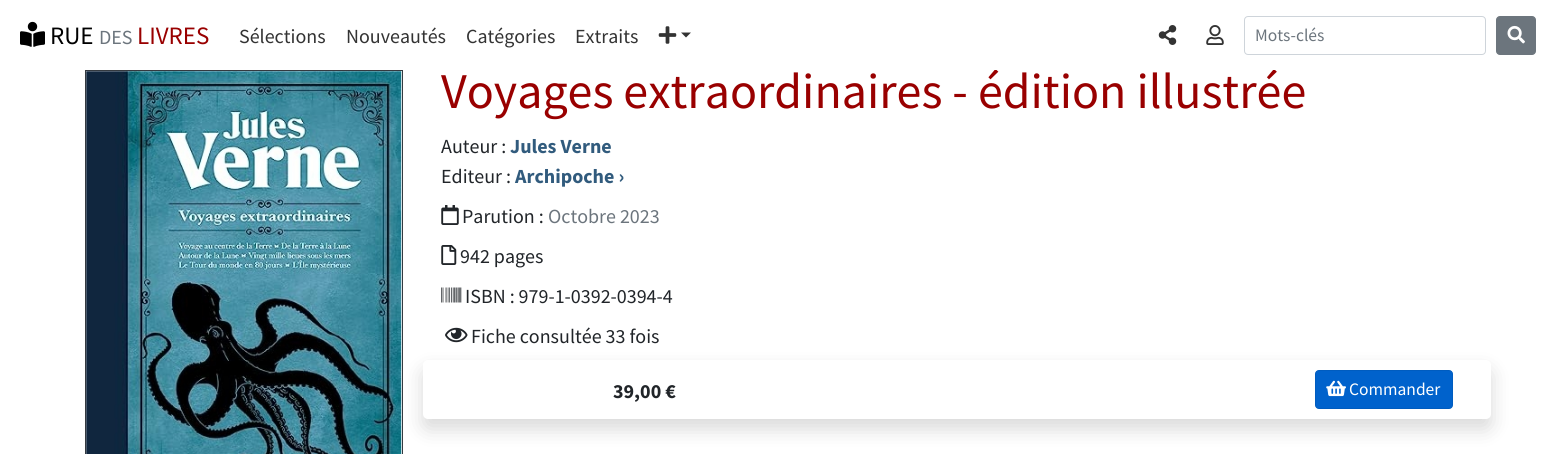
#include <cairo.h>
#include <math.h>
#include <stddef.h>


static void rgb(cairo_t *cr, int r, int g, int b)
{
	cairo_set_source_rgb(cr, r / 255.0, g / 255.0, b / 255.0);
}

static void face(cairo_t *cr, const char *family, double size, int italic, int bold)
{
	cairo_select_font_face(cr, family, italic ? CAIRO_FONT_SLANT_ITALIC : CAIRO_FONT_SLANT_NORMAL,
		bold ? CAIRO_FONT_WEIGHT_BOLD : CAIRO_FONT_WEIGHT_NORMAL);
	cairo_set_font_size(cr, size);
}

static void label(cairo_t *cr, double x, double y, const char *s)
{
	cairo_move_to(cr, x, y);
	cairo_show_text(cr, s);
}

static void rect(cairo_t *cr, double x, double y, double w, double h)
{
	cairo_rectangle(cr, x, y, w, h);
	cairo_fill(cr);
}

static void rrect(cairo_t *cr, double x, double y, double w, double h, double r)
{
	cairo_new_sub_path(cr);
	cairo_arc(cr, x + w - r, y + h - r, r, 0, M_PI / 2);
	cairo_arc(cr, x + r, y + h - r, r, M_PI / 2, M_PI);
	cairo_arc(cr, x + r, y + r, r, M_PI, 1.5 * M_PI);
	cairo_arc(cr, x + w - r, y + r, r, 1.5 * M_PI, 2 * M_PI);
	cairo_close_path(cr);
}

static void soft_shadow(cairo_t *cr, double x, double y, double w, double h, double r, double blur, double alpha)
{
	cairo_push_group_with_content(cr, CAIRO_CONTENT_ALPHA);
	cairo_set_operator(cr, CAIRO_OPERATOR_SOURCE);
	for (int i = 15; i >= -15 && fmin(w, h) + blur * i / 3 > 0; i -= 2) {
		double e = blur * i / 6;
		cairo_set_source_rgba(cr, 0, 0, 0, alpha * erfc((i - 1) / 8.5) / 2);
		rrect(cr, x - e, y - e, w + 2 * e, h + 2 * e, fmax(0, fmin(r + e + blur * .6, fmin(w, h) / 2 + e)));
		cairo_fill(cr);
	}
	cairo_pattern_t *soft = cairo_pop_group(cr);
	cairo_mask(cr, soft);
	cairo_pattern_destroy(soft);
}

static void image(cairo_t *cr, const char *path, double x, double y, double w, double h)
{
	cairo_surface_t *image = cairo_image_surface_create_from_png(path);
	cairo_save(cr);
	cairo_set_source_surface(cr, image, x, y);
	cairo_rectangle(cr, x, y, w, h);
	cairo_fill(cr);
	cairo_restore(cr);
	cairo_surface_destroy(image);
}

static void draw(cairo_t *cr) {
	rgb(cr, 255, 255, 255);
	cairo_paint(cr);
	face(cr, "Source Sans Pro", 50, 0, 0);
	rgb(cr, 153, 0, 0);
	label(cr, 441, 108, "Voyages extraordinaires - édition illustrée");
	rgb(cr, 255, 255, 255);
	rect(cr, 994, 69, 281, 1);
	image(cr, "image0.png", 20, 21, 25, 26);
	face(cr, "Source Sans Pro", 25, 0, 0);
	rgb(cr, 0, 0, 0);
	label(cr, 50, 44, "RUE");
	face(cr, "Source Sans Pro", 20, 0, 0);
	rgb(cr, 108, 117, 125);
	label(cr, 99, 44, "DES");
	face(cr, "Source Sans Pro", 25, 0, 0);
	rgb(cr, 153, 0, 0);
	label(cr, 137, 44, "LIVRES");
	face(cr, "Source Sans Pro", 20, 0, 0);
	rgb(cr, 51, 51, 51);
	label(cr, 239, 43, "Sélections");
	label(cr, 346, 43, "Nouveautés");
	label(cr, 466, 43, "Catégories");
	label(cr, 575, 43, "Extraits");
	image(cr, "image1.png", 658, 26, 19, 18);
	cairo_new_path(cr);
	cairo_move_to(cr, 681, 32.5);
	cairo_line_to(cr, 691, 32.5);
	cairo_line_to(cr, 686, 37.5);
	cairo_close_path(cr);
	cairo_fill(cr);
	image(cr, "image2.png", 1158, 25, 19, 20);
	image(cr, "image3.png", 1206, 25, 18, 20);
	rrect(cr, 1244.5, 16.5, 241, 38, 3.5);
	rgb(cr, 206, 212, 218);
	cairo_set_line_width(cr, 1);
	cairo_stroke(cr);
	face(cr, "Source Sans Pro", 17.5, 0, 0);
	rgb(cr, 108, 117, 125);
	label(cr, 1255, 41, "Mots-clés");
	rrect(cr, 1496.5, 16.5, 39, 38, 3.5);
	cairo_fill_preserve(cr);
	cairo_stroke(cr);
	image(cr, "image4.png", 1507, 25, 18, 19);
	cairo_rectangle(cr, 85.5, 70.5, 317, 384);
	rgb(cr, 52, 58, 64);
	cairo_stroke(cr);
	image(cr, "image5.png", 86, 71, 316, 383);
	face(cr, "Source Sans Pro", 20, 0, 0);
	rgb(cr, 33, 37, 41);
	label(cr, 441, 153, "Auteur :");
	face(cr, "Source Sans Pro", 20, 0, 1);
	rgb(cr, 49, 91, 125);
	label(cr, 510, 153, "Jules Verne");
	face(cr, "Source Sans Pro", 20, 0, 0);
	rgb(cr, 33, 37, 41);
	label(cr, 441, 183, "Editeur :");
	face(cr, "Source Sans Pro", 20, 0, 1);
	rgb(cr, 49, 91, 125);
	label(cr, 515, 183, "Archipoche ›");
	image(cr, "image6.png", 441, 205, 18, 20);
	face(cr, "Source Sans Pro", 20, 0, 0);
	rgb(cr, 33, 37, 41);
	label(cr, 462, 223, "Parution :");
	rgb(cr, 108, 117, 125);
	label(cr, 548, 223, "Octobre 2023");
	image(cr, "image7.png", 441, 245, 16, 20);
	rgb(cr, 33, 37, 41);
	label(cr, 460, 263, "942 pages");
	image(cr, "image8.png", 441, 287, 21, 16);
	label(cr, 465, 303, "ISBN : 979-1-0392-0394-4");
	rgb(cr, 0, 0, 0);
	soft_shadow(cr, 423, 370, 1068, 59, 5, 10, 0.15);
	image(cr, "image9.png", 445, 327, 23, 16);
	rgb(cr, 33, 37, 41);
	label(cr, 471, 343, "Fiche consultée 33 fois");
	rgb(cr, 255, 255, 255);
	rrect(cr, 423, 360, 1068, 59, 5);
	cairo_fill(cr);
	face(cr, "Source Sans Pro", 20, 0, 1);
	rgb(cr, 33, 37, 41);
	label(cr, 613, 398, "39,00 €");
	rgb(cr, 0, 98, 204);
	rrect(cr, 1315.5, 370.5, 137, 38, 3.5);
	cairo_fill_preserve(cr);
	rgb(cr, 0, 92, 191);
	cairo_stroke(cr);
	image(cr, "image10.png", 1326, 380, 20, 17);
	face(cr, "Source Sans Pro", 17.5, 0, 0);
	rgb(cr, 255, 255, 255);
	label(cr, 1349, 395, "Commander");
}

int main(void) {
	cairo_surface_t *surface = cairo_image_surface_create(CAIRO_FORMAT_RGB24, 1556, 454);
	cairo_t *cr = cairo_create(surface);
	cairo_font_options_t *options = cairo_font_options_create();
	cairo_font_options_set_hint_metrics(options, CAIRO_HINT_METRICS_OFF);
	cairo_font_options_set_hint_style(options, CAIRO_HINT_STYLE_NONE);
	cairo_set_font_options(cr, options);
	cairo_set_miter_limit(cr, 4);
	draw(cr);
	cairo_surface_write_to_png(surface, "render.png");
	cairo_font_options_destroy(options);
	cairo_destroy(cr);
	cairo_surface_destroy(surface);
	return 0;
}
